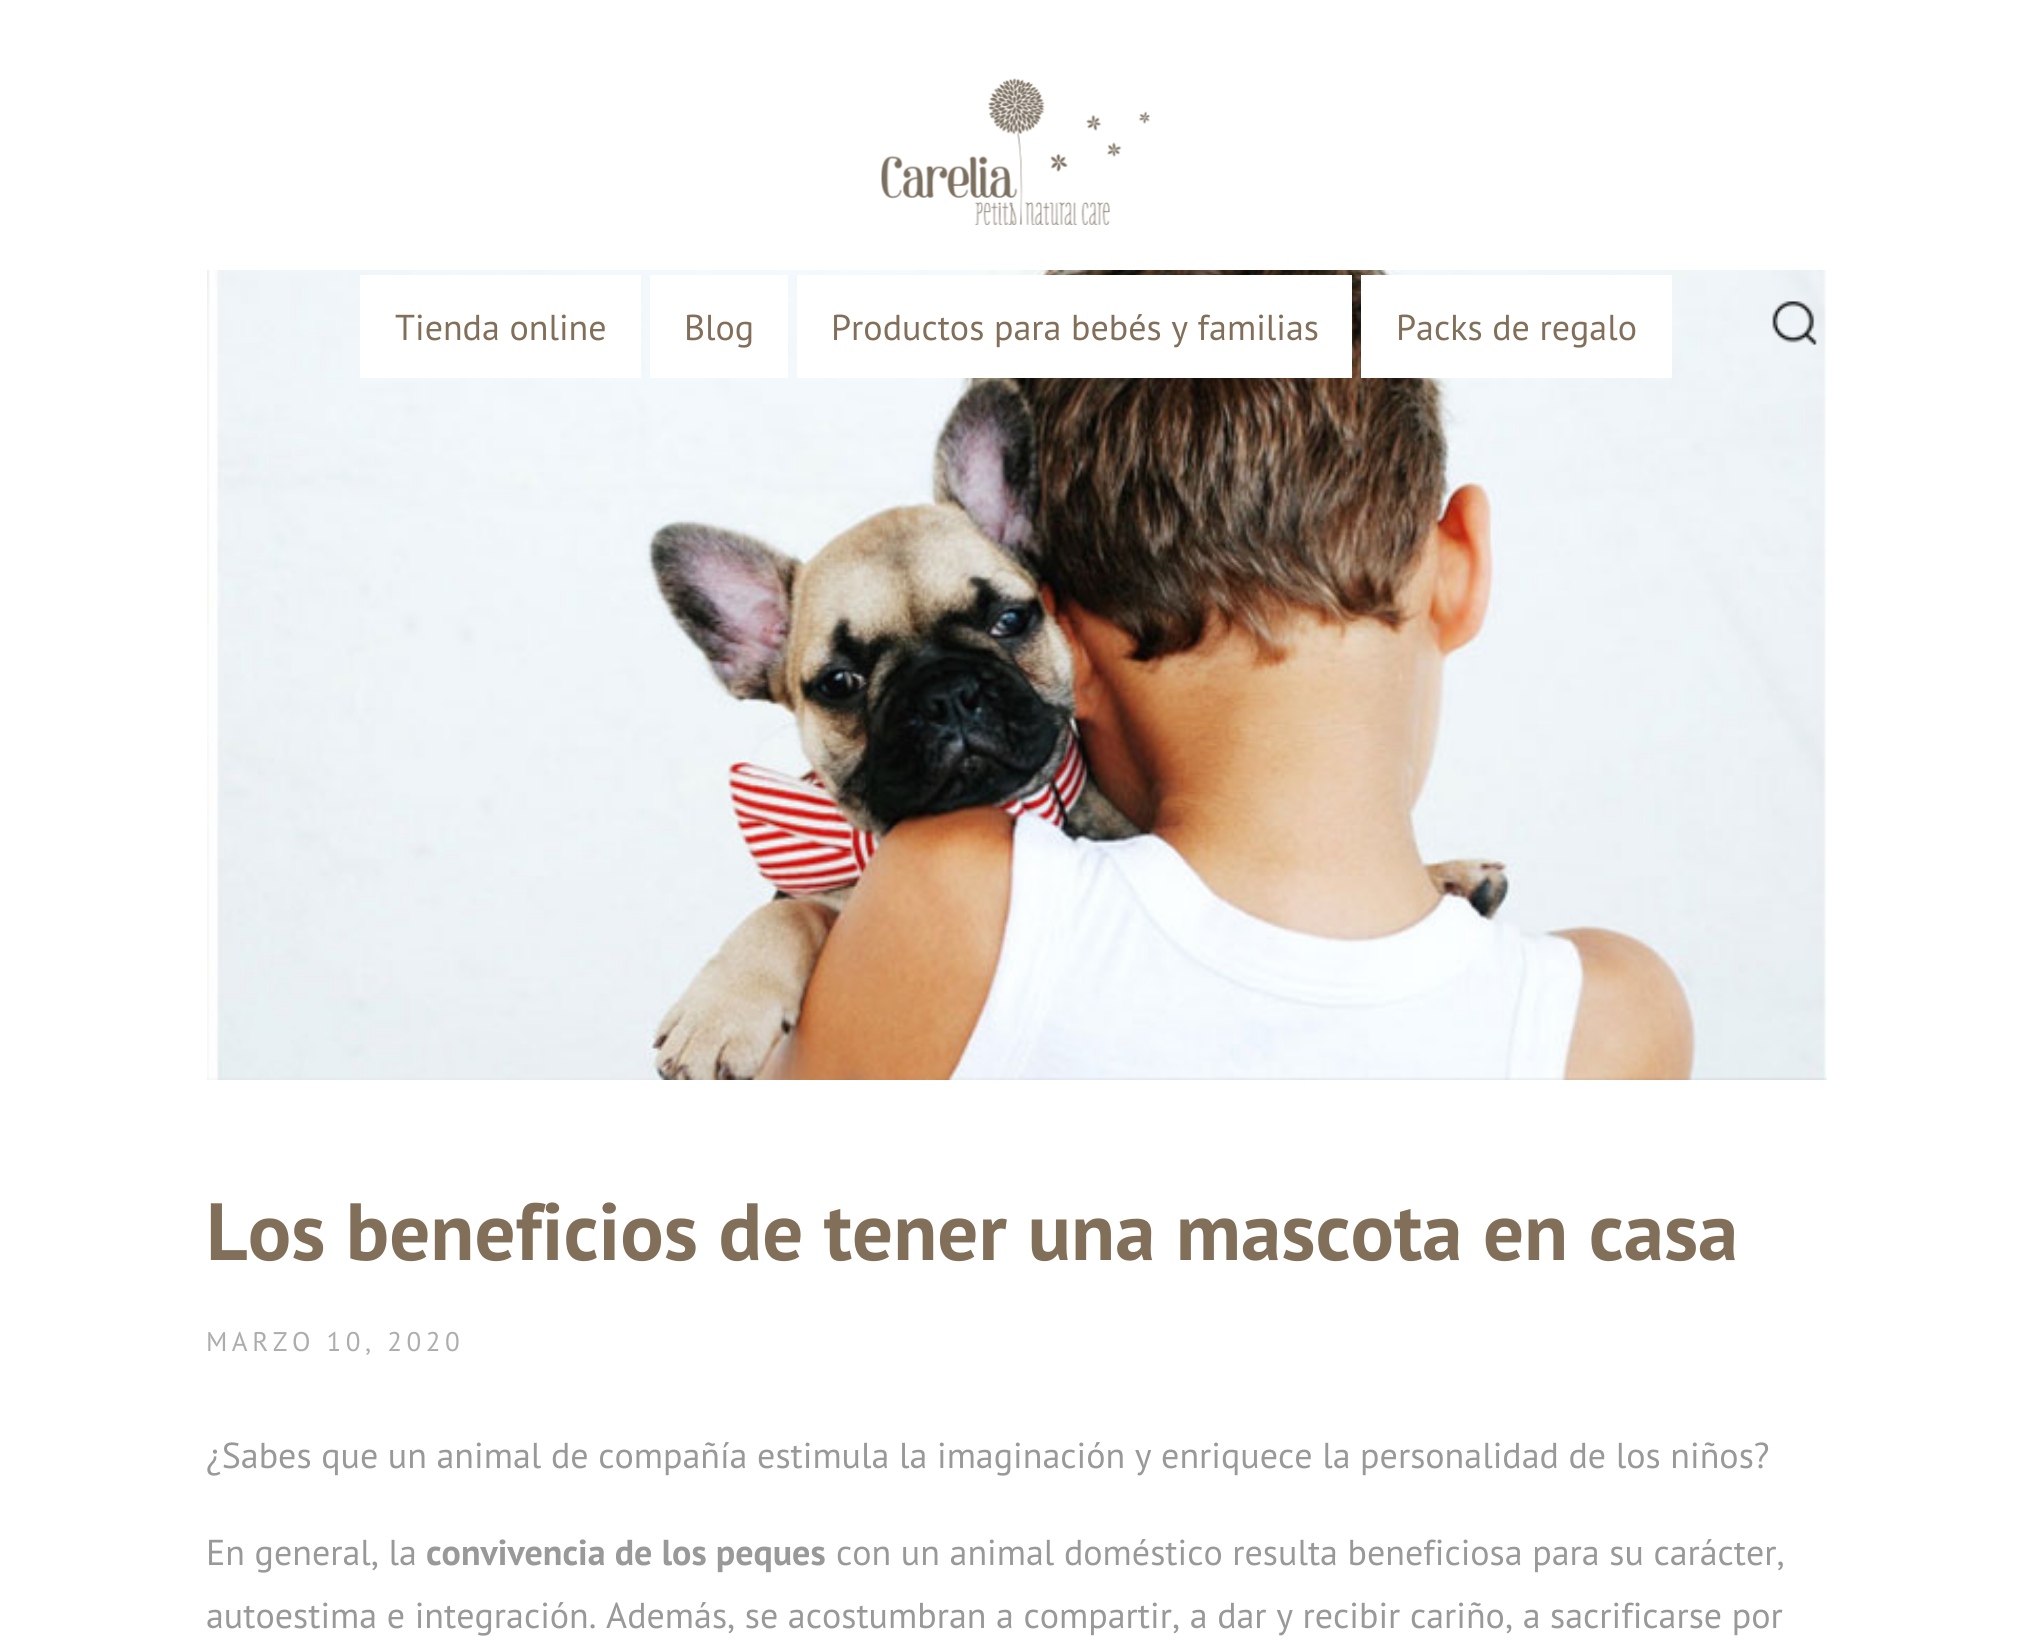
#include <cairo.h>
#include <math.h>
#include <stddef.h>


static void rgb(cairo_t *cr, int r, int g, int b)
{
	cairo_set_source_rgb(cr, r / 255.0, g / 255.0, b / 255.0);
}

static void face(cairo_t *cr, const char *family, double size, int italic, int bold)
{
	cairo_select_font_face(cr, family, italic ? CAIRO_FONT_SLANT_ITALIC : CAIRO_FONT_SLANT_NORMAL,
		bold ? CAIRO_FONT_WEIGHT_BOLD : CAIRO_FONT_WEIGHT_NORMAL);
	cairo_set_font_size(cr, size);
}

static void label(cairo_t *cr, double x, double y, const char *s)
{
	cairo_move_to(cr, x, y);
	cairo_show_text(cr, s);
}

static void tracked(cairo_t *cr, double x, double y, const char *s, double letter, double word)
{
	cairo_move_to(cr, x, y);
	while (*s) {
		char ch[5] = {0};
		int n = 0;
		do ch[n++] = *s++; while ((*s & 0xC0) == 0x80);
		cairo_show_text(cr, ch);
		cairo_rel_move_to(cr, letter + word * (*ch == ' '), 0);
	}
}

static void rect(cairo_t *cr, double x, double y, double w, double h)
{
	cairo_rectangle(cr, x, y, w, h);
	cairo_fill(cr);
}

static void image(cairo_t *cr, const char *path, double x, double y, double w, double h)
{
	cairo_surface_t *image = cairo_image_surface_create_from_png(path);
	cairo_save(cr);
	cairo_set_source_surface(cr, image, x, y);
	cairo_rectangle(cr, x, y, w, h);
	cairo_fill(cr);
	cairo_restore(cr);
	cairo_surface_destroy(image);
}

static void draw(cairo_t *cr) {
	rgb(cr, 255, 255, 255);
	cairo_paint(cr);
	image(cr, "image0.png", 881, 78, 269, 147);
	image(cr, "image2.png", 207, 270, 1620, 810);
	rgb(cr, 255, 255, 255);
	rect(cr, 360, 275, 281, 103);
	face(cr, "PT Sans", 36, 0, 0);
	rgb(cr, 130, 111, 90);
	label(cr, 395, 340, "Tienda online");
	rgb(cr, 255, 255, 255);
	rect(cr, 650, 275, 138, 103);
	rgb(cr, 130, 111, 90);
	label(cr, 684, 340, "Blog");
	rgb(cr, 255, 255, 255);
	rect(cr, 797, 275, 555, 103);
	rgb(cr, 130, 111, 90);
	label(cr, 831, 340, "Productos para bebés y familias");
	rgb(cr, 255, 255, 255);
	rect(cr, 1361, 275, 311, 103);
	rgb(cr, 130, 111, 90);
	label(cr, 1396, 340, "Packs de regalo");
	image(cr, "image1.png", 1772, 301, 45, 44);
	face(cr, "PT Sans", 81, 0, 1);
	label(cr, 206, 1260, "Los beneficios de tener una mascota en casa");
	face(cr, "PT Sans", 27, 0, 0);
	rgb(cr, 173, 173, 173);
	tracked(cr, 206, 1351, "MARZO 10, 2020", 4.5, 0);
	face(cr, "PT Sans", 36, 0, 0);
	rgb(cr, 153, 153, 153);
	label(cr, 206, 1468, "¿Sabes que un animal de compañía estimula la imaginación y enriquece la personalidad de los niños?");
	label(cr, 206, 1565, "En general, la");
	face(cr, "PT Sans", 36, 0, 1);
	label(cr, 426, 1565, "convivencia de los peques");
	face(cr, "PT Sans", 36, 0, 0);
	label(cr, 836, 1565, "con un animal doméstico resulta beneficiosa para su carácter,");
	label(cr, 206, 1628, "autoestima e integración. Además, se acostumbran a compartir, a dar y recibir cariño, a sacrificarse por");
}

int main(void) {
	cairo_surface_t *surface = cairo_image_surface_create(CAIRO_FORMAT_RGB24, 2030, 1648);
	cairo_t *cr = cairo_create(surface);
	cairo_font_options_t *options = cairo_font_options_create();
	cairo_font_options_set_hint_metrics(options, CAIRO_HINT_METRICS_OFF);
	cairo_font_options_set_hint_style(options, CAIRO_HINT_STYLE_NONE);
	cairo_set_font_options(cr, options);
	cairo_set_miter_limit(cr, 4);
	draw(cr);
	cairo_surface_write_to_png(surface, "render.png");
	cairo_font_options_destroy(options);
	cairo_destroy(cr);
	cairo_surface_destroy(surface);
	return 0;
}
